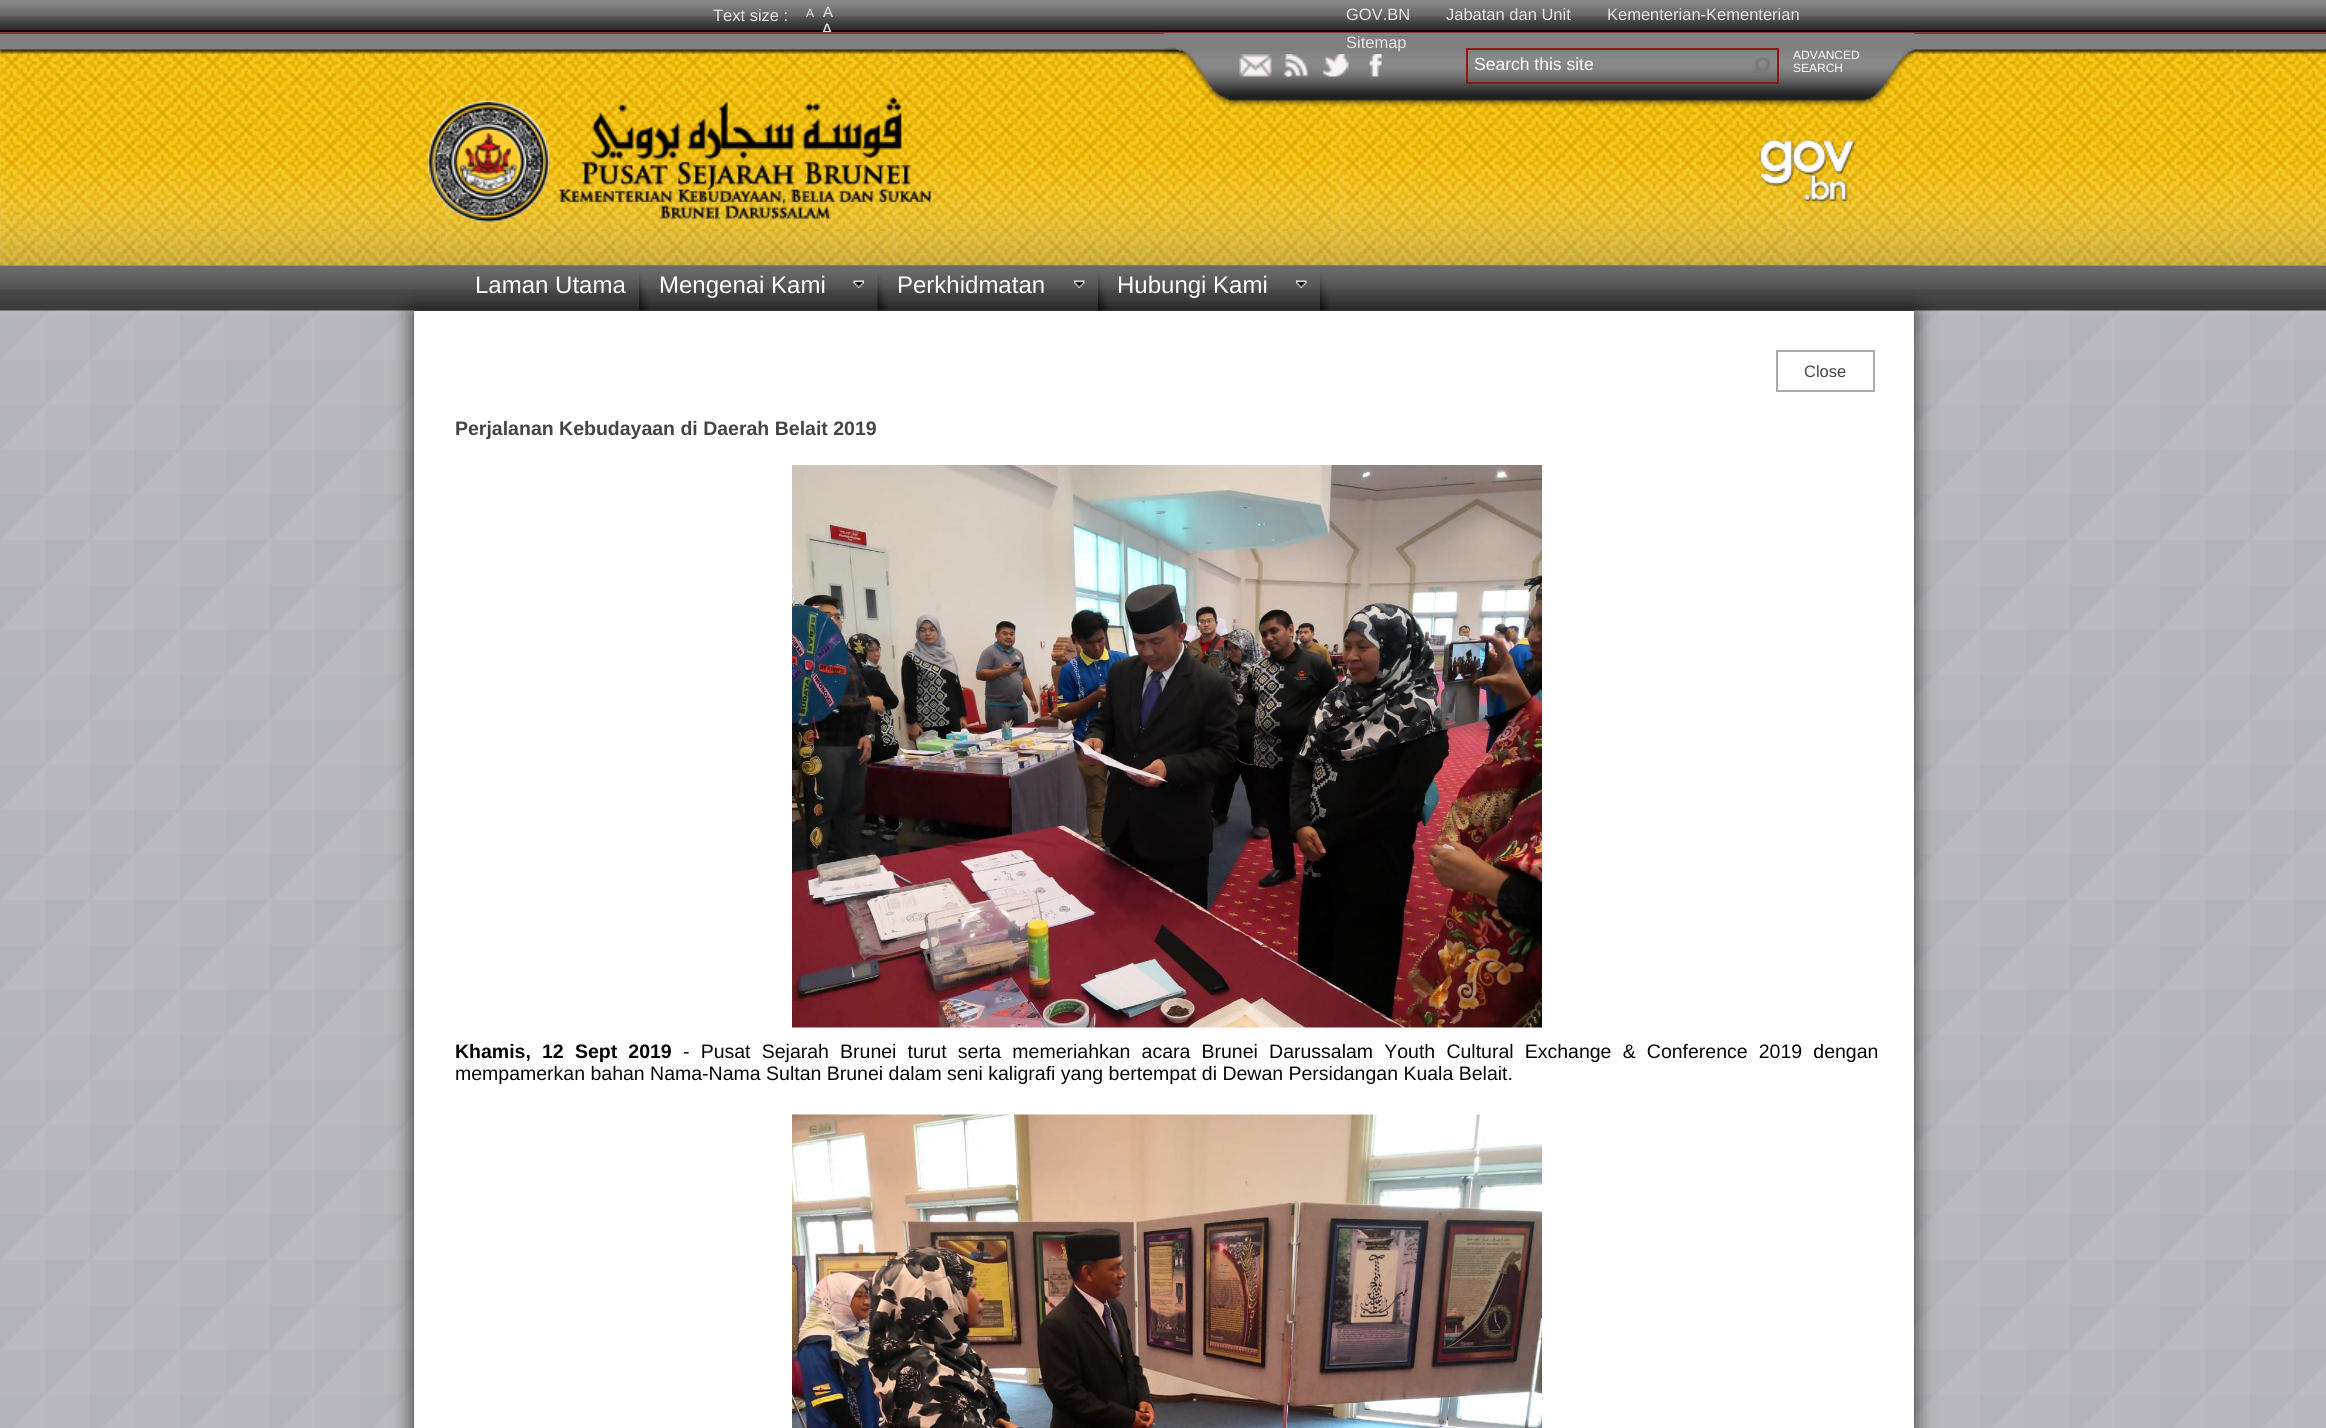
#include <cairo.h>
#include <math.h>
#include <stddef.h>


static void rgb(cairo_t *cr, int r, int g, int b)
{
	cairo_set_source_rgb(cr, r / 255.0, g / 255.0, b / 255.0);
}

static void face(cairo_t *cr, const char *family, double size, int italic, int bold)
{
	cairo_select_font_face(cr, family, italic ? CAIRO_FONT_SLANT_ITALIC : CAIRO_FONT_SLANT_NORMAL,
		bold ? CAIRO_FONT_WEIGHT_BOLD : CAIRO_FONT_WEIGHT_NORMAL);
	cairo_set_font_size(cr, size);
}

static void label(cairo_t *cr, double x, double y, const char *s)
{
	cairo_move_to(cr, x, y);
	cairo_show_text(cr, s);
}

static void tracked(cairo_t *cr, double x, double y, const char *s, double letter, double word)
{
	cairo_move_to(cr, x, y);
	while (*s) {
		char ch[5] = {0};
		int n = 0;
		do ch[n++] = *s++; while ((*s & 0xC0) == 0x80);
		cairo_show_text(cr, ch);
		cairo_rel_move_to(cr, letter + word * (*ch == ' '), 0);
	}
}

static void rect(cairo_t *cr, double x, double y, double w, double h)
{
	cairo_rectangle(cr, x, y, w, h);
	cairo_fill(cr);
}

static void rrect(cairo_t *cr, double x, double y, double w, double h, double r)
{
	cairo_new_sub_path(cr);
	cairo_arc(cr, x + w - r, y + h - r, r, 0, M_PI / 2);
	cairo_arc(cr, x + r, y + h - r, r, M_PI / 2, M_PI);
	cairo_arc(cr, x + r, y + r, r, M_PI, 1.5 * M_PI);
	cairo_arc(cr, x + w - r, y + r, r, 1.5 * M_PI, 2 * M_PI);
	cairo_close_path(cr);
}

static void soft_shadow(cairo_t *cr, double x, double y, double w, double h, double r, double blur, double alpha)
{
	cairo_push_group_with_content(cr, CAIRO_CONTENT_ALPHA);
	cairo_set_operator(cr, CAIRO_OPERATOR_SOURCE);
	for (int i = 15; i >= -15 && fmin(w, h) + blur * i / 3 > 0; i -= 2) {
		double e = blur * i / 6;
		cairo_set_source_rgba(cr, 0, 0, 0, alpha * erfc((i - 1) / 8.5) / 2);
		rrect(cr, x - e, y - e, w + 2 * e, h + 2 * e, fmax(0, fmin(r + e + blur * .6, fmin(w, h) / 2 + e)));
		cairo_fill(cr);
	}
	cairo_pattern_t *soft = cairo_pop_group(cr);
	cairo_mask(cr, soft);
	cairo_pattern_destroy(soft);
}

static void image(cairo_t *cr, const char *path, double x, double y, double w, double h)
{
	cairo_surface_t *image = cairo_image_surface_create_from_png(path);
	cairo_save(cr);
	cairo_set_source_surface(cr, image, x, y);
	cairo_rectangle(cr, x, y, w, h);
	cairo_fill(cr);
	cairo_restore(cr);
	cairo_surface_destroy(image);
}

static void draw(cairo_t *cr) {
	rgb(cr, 255, 255, 255);
	cairo_paint(cr);
	image(cr, "image0.png", 0, 265, 2326, 1163);
	image(cr, "image1.png", 0, 0, 2326, 30);
	rgb(cr, 22, 0, 0);
	rect(cr, 0, 30, 2326, 2);
	face(cr, "Liberation Sans", 16.5, 0, 0);
	rgb(cr, 229, 229, 229);
	label(cr, 713, 21, "Text size :");
	face(cr, "Liberation Sans", 12, 0, 0);
	label(cr, 806, 17, "A");
	face(cr, "Liberation Sans", 15, 0, 0);
	label(cr, 823, 17, "A");
	face(cr, "Liberation Sans", 18, 0, 0);
	label(cr, 821, 36, "A");
	face(cr, "Liberation Sans", 16.5, 0, 0);
	label(cr, 1346, 20, "GOV.BN");
	label(cr, 1446, 20, "Jabatan dan Unit");
	label(cr, 1607, 20, "Kementerian-Kementerian");
	image(cr, "image2.png", 0, 34, 2326, 232);
	rgb(cr, 126, 59, 59);
	rect(cr, 0, 32, 2326, 2);
	image(cr, "image3.png", 1164, 33, 750, 74);
	rgb(cr, 229, 229, 229);
	label(cr, 1346, 48, "Sitemap");
	image(cr, "image4.png", 1239, 54, 33, 23);
	image(cr, "image5.png", 1283, 54, 26, 23);
	image(cr, "image6.png", 1322, 54, 27, 23);
	image(cr, "image7.png", 1369, 54, 13, 23);
	cairo_rectangle(cr, 1467, 49, 311, 34);
	rgb(cr, 141, 26, 26);
	cairo_stroke(cr);
	face(cr, "Liberation Sans", 17.5, 0, 0);
	rgb(cr, 255, 255, 255);
	label(cr, 1474, 70, "Search this site");
	image(cr, "image8.png", 1753, 57, 17, 16);
	face(cr, "Liberation Sans", 12, 0, 0);
	label(cr, 1793, 59, "ADVANCED");
	label(cr, 1793, 72, "SEARCH");
	image(cr, "image9.png", 1759, 139, 97, 64);
	image(cr, "image10.png", 427, 97, 506, 126);
	image(cr, "image11.png", 0, 265, 2326, 46);
	image(cr, "image12.png", 414, 265, 1500, 46);
	rgb(cr, 0, 0, 0);
	soft_shadow(cr, 414, 311, 1500, 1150, 0, 11, 0.75);
	image(cr, "image13.png", 639, 272, 10, 39);
	face(cr, "Liberation Sans", 24, 0, 0);
	rgb(cr, 255, 255, 255);
	label(cr, 475, 293, "Laman Utama");
	image(cr, "image14.png", 877, 273, 10, 38);
	label(cr, 659, 293, "Mengenai Kami");
	image(cr, "image15.png", 853, 280, 11, 8);
	image(cr, "image16.png", 1098, 272, 10, 39);
	label(cr, 897, 293, "Perkhidmatan");
	image(cr, "image17.png", 1074, 280, 11, 8);
	image(cr, "image18.png", 1320, 272, 10, 39);
	label(cr, 1117, 293, "Hubungi Kami");
	image(cr, "image19.png", 1296, 280, 11, 8);
	rect(cr, 414, 311, 1500, 1117);
	cairo_rectangle(cr, 1777, 351, 97, 40);
	rgb(cr, 171, 171, 171);
	cairo_stroke(cr);
	face(cr, "Liberation Sans", 16.5, 0, 0);
	rgb(cr, 68, 68, 68);
	label(cr, 1804, 377, "Close");
	face(cr, "Liberation Sans", 19.5, 0, 1);
	label(cr, 455, 435, "Perjalanan Kebudayaan di Daerah Belait 2019");
	image(cr, "image20.png", 792, 465, 750, 563);
	rgb(cr, 6, 6, 6);
	tracked(cr, 455, 1058, "Khamis, 12 Sept 2019", 0, 5.75);
	face(cr, "Liberation Sans", 19.5, 0, 0);
	tracked(cr, 683, 1058, "- Pusat Sejarah Brunei turut serta memeriahkan acara Brunei Darussalam Youth Cultural Exchange & Conference 2019 dengan", 0, 5.75);
	label(cr, 455, 1080, "mempamerkan bahan Nama-Nama Sultan Brunei dalam seni kaligrafi yang bertempat di Dewan Persidangan Kuala Belait.");
	image(cr, "image21.png", 792, 1114, 750, 314);
}

int main(void) {
	cairo_surface_t *surface = cairo_image_surface_create(CAIRO_FORMAT_RGB24, 2326, 1428);
	cairo_t *cr = cairo_create(surface);
	cairo_font_options_t *options = cairo_font_options_create();
	cairo_font_options_set_hint_metrics(options, CAIRO_HINT_METRICS_OFF);
	cairo_font_options_set_hint_style(options, CAIRO_HINT_STYLE_NONE);
	cairo_set_font_options(cr, options);
	cairo_set_miter_limit(cr, 4);
	draw(cr);
	cairo_surface_write_to_png(surface, "render.png");
	cairo_font_options_destroy(options);
	cairo_destroy(cr);
	cairo_surface_destroy(surface);
	return 0;
}
